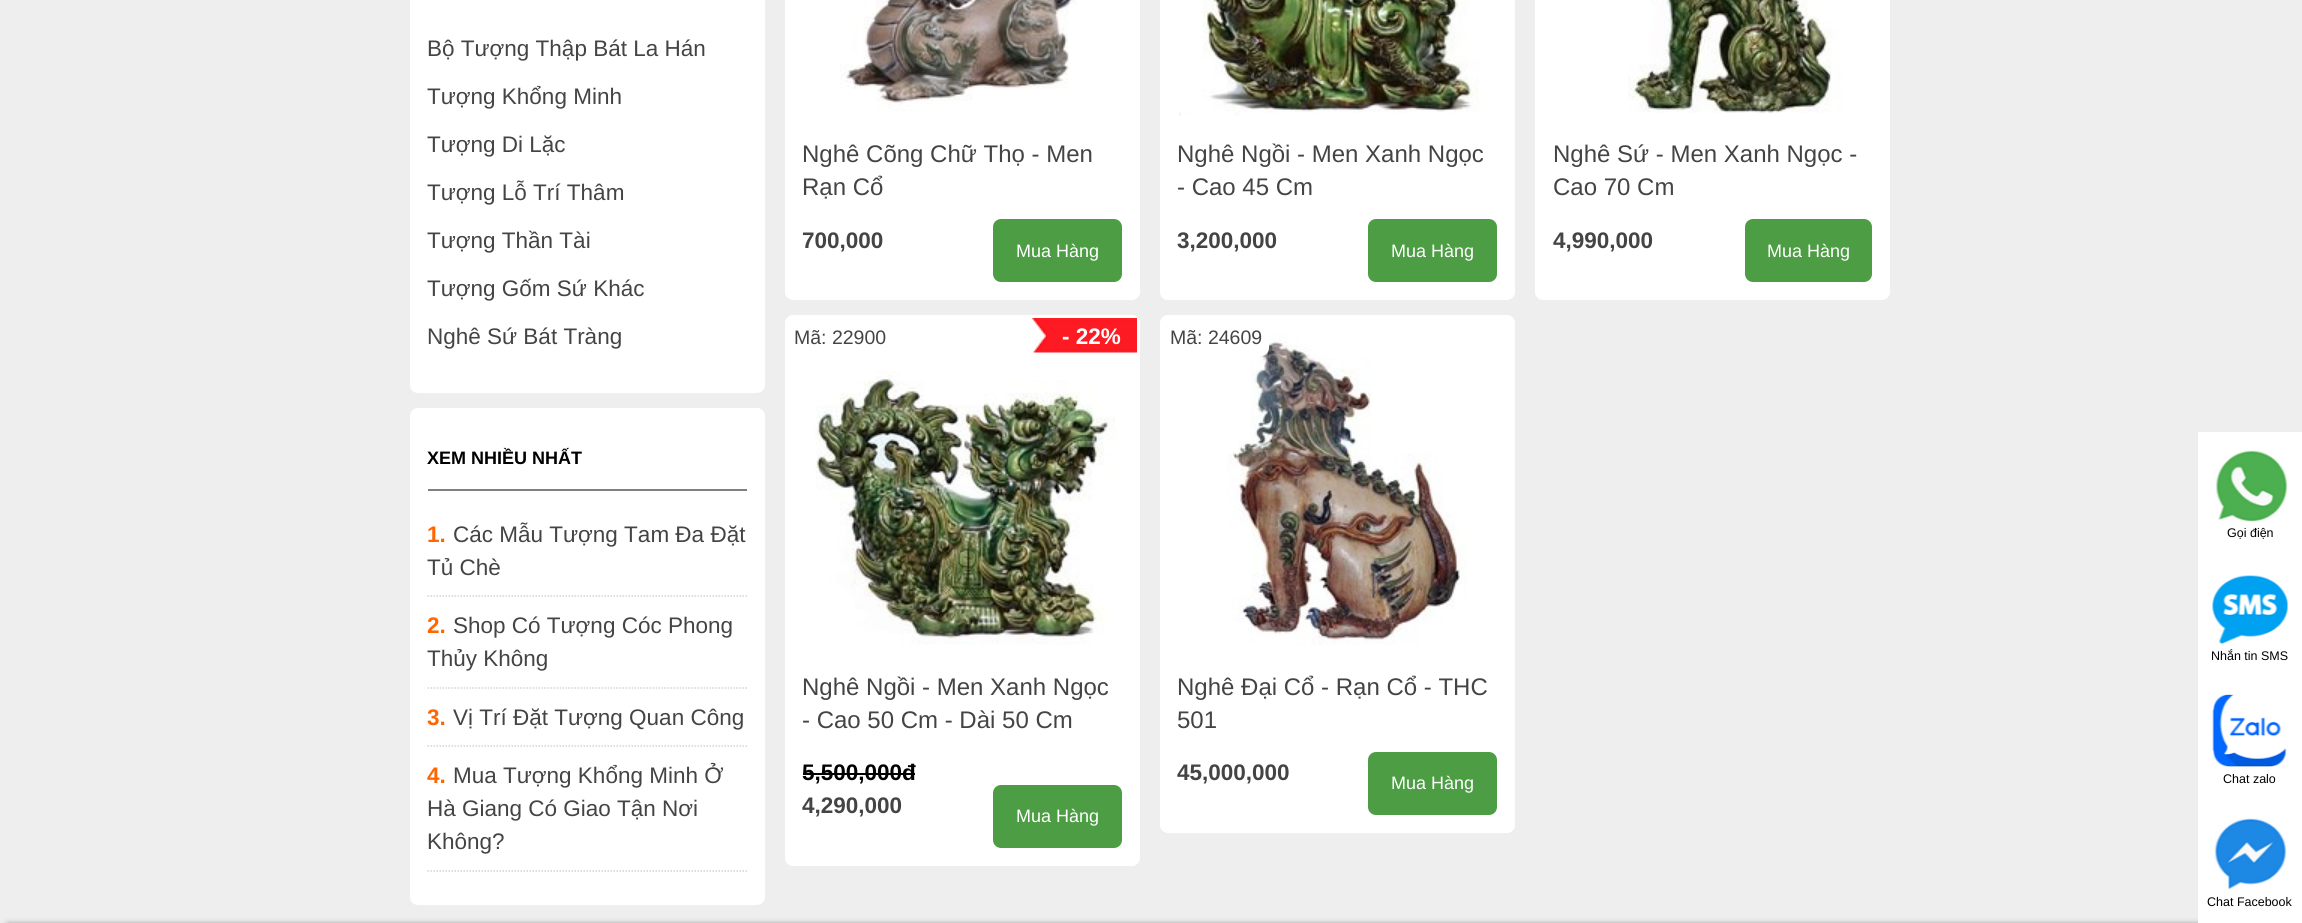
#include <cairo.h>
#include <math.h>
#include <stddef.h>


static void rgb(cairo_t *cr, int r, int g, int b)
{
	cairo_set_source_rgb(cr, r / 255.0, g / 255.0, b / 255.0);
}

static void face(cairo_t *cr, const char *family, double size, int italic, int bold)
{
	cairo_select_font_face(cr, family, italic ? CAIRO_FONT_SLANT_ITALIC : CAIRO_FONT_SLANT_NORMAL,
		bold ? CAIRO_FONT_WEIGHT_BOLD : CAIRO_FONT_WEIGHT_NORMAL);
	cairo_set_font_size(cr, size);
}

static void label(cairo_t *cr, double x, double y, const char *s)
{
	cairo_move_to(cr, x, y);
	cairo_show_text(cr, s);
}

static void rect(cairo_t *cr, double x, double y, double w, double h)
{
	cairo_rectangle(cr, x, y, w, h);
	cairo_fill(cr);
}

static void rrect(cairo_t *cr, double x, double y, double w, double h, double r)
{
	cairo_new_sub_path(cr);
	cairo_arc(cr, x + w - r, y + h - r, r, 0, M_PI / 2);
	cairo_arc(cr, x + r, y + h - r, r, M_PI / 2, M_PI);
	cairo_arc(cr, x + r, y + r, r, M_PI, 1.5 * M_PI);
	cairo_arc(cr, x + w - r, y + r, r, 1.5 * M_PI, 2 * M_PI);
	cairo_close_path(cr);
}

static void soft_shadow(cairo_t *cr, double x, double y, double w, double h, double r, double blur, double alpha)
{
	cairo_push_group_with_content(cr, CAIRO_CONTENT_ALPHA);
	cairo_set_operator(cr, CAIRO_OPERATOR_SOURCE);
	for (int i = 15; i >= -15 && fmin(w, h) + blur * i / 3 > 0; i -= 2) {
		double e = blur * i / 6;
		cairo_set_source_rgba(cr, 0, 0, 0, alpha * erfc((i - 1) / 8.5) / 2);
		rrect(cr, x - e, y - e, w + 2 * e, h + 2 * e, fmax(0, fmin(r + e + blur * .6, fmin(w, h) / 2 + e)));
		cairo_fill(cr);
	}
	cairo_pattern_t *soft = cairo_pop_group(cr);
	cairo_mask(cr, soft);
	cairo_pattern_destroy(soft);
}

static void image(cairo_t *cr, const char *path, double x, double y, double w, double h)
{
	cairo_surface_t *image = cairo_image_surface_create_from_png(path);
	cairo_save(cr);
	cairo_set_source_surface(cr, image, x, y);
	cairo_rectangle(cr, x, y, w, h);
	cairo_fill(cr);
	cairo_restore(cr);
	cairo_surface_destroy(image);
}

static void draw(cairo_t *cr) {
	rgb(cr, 238, 238, 238);
	cairo_paint(cr);
	rgb(cr, 255, 255, 255);
	rrect(cr, 411.5, -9.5, 352, 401, 6.5);
	cairo_fill_preserve(cr);
	cairo_set_line_width(cr, 3);
	cairo_stroke(cr);
	face(cr, "Liberation Sans", 22.5, 0, 0);
	rgb(cr, 68, 68, 68);
	label(cr, 427, 56, "Bộ Tượng Thập Bát La Hán");
	label(cr, 427, 104, "Tượng Khổng Minh");
	label(cr, 427, 152, "Tượng Di Lặc");
	label(cr, 427, 200, "Tượng Lỗ Trí Thâm");
	label(cr, 427, 248, "Tượng Thần Tài");
	label(cr, 427, 296, "Tượng Gốm Sứ Khác");
	label(cr, 427, 344, "Nghê Sứ Bát Tràng");
	rgb(cr, 255, 255, 255);
	rrect(cr, 411.5, 409.5, 352, 494, 6.5);
	cairo_fill_preserve(cr);
	cairo_stroke(cr);
	rgb(cr, 128, 128, 128);
	rect(cr, 428, 489, 319, 2);
	face(cr, "Liberation Sans", 18, 0, 1);
	rgb(cr, 0, 0, 0);
	label(cr, 427, 464, "XEM NHIỀU NHẤT");
	cairo_new_path(cr);
	cairo_move_to(cr, 427.5, 596);
	cairo_line_to(cr, 747, 596);
	rgb(cr, 211, 211, 211);
	cairo_set_line_width(cr, 1.5);
	cairo_set_dash(cr, (double[]){1.5, 1.5}, 2, 0);
	cairo_stroke(cr);
	face(cr, "Liberation Sans", 22.5, 0, 1);
	rgb(cr, 255, 102, 0);
	label(cr, 427, 542, "1.");
	face(cr, "Liberation Sans", 22.5, 0, 0);
	rgb(cr, 68, 68, 68);
	label(cr, 453, 542, "Các Mẫu Tượng Tam Đa Đặt");
	label(cr, 427, 575, "Tủ Chè");
	cairo_new_path(cr);
	cairo_move_to(cr, 427.5, 688);
	cairo_line_to(cr, 747, 688);
	rgb(cr, 211, 211, 211);
	cairo_stroke(cr);
	face(cr, "Liberation Sans", 22.5, 0, 1);
	rgb(cr, 255, 102, 0);
	label(cr, 427, 633, "2.");
	face(cr, "Liberation Sans", 22.5, 0, 0);
	rgb(cr, 68, 68, 68);
	label(cr, 453, 633, "Shop Có Tượng Cóc Phong");
	label(cr, 427, 666, "Thủy Không");
	cairo_new_path(cr);
	cairo_move_to(cr, 427.5, 746);
	cairo_line_to(cr, 747, 746);
	rgb(cr, 211, 211, 211);
	cairo_stroke(cr);
	face(cr, "Liberation Sans", 22.5, 0, 1);
	rgb(cr, 255, 102, 0);
	label(cr, 427, 725, "3.");
	face(cr, "Liberation Sans", 22.5, 0, 0);
	rgb(cr, 68, 68, 68);
	label(cr, 453, 725, "Vị Trí Đặt Tượng Quan Công");
	cairo_new_path(cr);
	cairo_move_to(cr, 427.5, 871);
	cairo_line_to(cr, 747, 871);
	rgb(cr, 211, 211, 211);
	cairo_stroke(cr);
	face(cr, "Liberation Sans", 22.5, 0, 1);
	rgb(cr, 255, 102, 0);
	label(cr, 427, 783, "4.");
	face(cr, "Liberation Sans", 22.5, 0, 0);
	rgb(cr, 68, 68, 68);
	label(cr, 453, 783, "Mua Tượng Khổng Minh Ở");
	label(cr, 427, 816, "Hà Giang Có Giao Tận Nơi");
	label(cr, 427, 849, "Không?");
	rgb(cr, 255, 255, 255);
	rrect(cr, 786.5, -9.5, 352, 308, 6.5);
	cairo_fill_preserve(cr);
	cairo_set_line_width(cr, 3);
	cairo_set_dash(cr, NULL, 0, 0);
	cairo_stroke(cr);
	image(cr, "image0.png", 840, 0, 237, 111);
	face(cr, "Liberation Sans", 24, 0, 0);
	rgb(cr, 68, 68, 68);
	label(cr, 802, 162, "Nghê Cõng Chữ Thọ - Men");
	label(cr, 802, 195, "Rạn Cổ");
	face(cr, "Liberation Sans", 22.5, 0, 1);
	label(cr, 802, 248, "700,000");
	rgb(cr, 77, 157, 69);
	rrect(cr, 993, 219, 129, 63, 8);
	cairo_fill(cr);
	face(cr, "Liberation Sans", 18, 0, 0);
	rgb(cr, 255, 255, 255);
	label(cr, 1016, 257, "Mua Hàng");
	rrect(cr, 1161.5, -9.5, 352, 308, 6.5);
	cairo_fill_preserve(cr);
	cairo_stroke(cr);
	image(cr, "image1.png", 1179, 0, 311, 116);
	face(cr, "Liberation Sans", 24, 0, 0);
	rgb(cr, 68, 68, 68);
	label(cr, 1177, 162, "Nghê Ngồi - Men Xanh Ngọc");
	label(cr, 1177, 195, "- Cao 45 Cm");
	face(cr, "Liberation Sans", 22.5, 0, 1);
	label(cr, 1177, 248, "3,200,000");
	rgb(cr, 77, 157, 69);
	rrect(cr, 1368, 219, 129, 63, 8);
	cairo_fill(cr);
	face(cr, "Liberation Sans", 18, 0, 0);
	rgb(cr, 255, 255, 255);
	label(cr, 1391, 257, "Mua Hàng");
	rrect(cr, 1536.5, -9.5, 352, 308, 6.5);
	cairo_fill_preserve(cr);
	cairo_stroke(cr);
	image(cr, "image2.png", 1628, 0, 215, 113);
	face(cr, "Liberation Sans", 24, 0, 0);
	rgb(cr, 68, 68, 68);
	label(cr, 1553, 162, "Nghê Sứ - Men Xanh Ngọc -");
	label(cr, 1553, 195, "Cao 70 Cm");
	face(cr, "Liberation Sans", 22.5, 0, 1);
	label(cr, 1553, 248, "4,990,000");
	rgb(cr, 77, 157, 69);
	rrect(cr, 1745, 219, 127, 63, 8);
	cairo_fill(cr);
	face(cr, "Liberation Sans", 18, 0, 0);
	rgb(cr, 255, 255, 255);
	label(cr, 1767, 257, "Mua Hàng");
	rrect(cr, 786.5, 316.5, 352, 548, 6.5);
	cairo_fill_preserve(cr);
	cairo_stroke(cr);
	face(cr, "Liberation Sans", 19.5, 0, 0);
	rgb(cr, 68, 68, 68);
	label(cr, 794, 344, "Mã: 22900");
	image(cr, "image3.png", 1032, 318, 105, 35);
	face(cr, "Liberation Sans", 22.5, 0, 1);
	rgb(cr, 255, 255, 255);
	label(cr, 1062, 344, "- 22%");
	image(cr, "image4.png", 815, 371, 301, 274);
	face(cr, "Liberation Sans", 24, 0, 0);
	rgb(cr, 68, 68, 68);
	label(cr, 802, 695, "Nghê Ngồi - Men Xanh Ngọc");
	label(cr, 802, 728, "- Cao 50 Cm - Dài 50 Cm");
	face(cr, "Liberation Sans", 22.5, 0, 1);
	rgb(cr, 0, 0, 0);
	label(cr, 802, 780, "5,500,000đ");
	rect(cr, 803, 773, 112, 2);
	rgb(cr, 68, 68, 68);
	label(cr, 802, 813, "4,290,000");
	rgb(cr, 77, 157, 69);
	rrect(cr, 993, 785, 129, 63, 8);
	cairo_fill(cr);
	face(cr, "Liberation Sans", 18, 0, 0);
	rgb(cr, 255, 255, 255);
	label(cr, 1016, 822, "Mua Hàng");
	rrect(cr, 1161.5, 316.5, 352, 515, 6.5);
	cairo_fill_preserve(cr);
	cairo_stroke(cr);
	image(cr, "image5.png", 1227, 333, 240, 312);
	rrect(cr, 1163, 318, 106, 38, 8);
	cairo_fill(cr);
	face(cr, "Liberation Sans", 19.5, 0, 0);
	rgb(cr, 68, 68, 68);
	label(cr, 1170, 344, "Mã: 24609");
	face(cr, "Liberation Sans", 24, 0, 0);
	label(cr, 1177, 695, "Nghê Đại Cổ - Rạn Cổ - THC");
	label(cr, 1177, 728, "501");
	face(cr, "Liberation Sans", 22.5, 0, 1);
	label(cr, 1177, 780, "45,000,000");
	rgb(cr, 77, 157, 69);
	rrect(cr, 1368, 752, 129, 63, 8);
	cairo_fill(cr);
	face(cr, "Liberation Sans", 18, 0, 0);
	rgb(cr, 255, 255, 255);
	label(cr, 1391, 789, "Mua Hàng");
	rgb(cr, 0, 0, 0);
	soft_shadow(cr, 8, 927, 2287, 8, 0, 4, 1);
	rgb(cr, 255, 255, 255);
	rect(cr, 2198, 432, 104, 491);
	image(cr, "image6.png", 2215, 450, 73, 72);
	face(cr, "Liberation Sans", 12.5, 0, 0);
	rgb(cr, 0, 0, 0);
	label(cr, 2227, 537, "Gọi điện");
	image(cr, "image7.png", 2212, 575, 76, 69);
	label(cr, 2211, 660, "Nhắn tin SMS");
	image(cr, "image8.png", 2212, 694, 75, 73);
	label(cr, 2223, 783, "Chat zalo");
	image(cr, "image9.png", 2214, 818, 73, 72);
	label(cr, 2207, 906, "Chat Facebook");
}

int main(void) {
	cairo_surface_t *surface = cairo_image_surface_create(CAIRO_FORMAT_RGB24, 2302, 923);
	cairo_t *cr = cairo_create(surface);
	cairo_font_options_t *options = cairo_font_options_create();
	cairo_font_options_set_hint_metrics(options, CAIRO_HINT_METRICS_OFF);
	cairo_font_options_set_hint_style(options, CAIRO_HINT_STYLE_NONE);
	cairo_set_font_options(cr, options);
	cairo_set_miter_limit(cr, 4);
	draw(cr);
	cairo_surface_write_to_png(surface, "render.png");
	cairo_font_options_destroy(options);
	cairo_destroy(cr);
	cairo_surface_destroy(surface);
	return 0;
}
